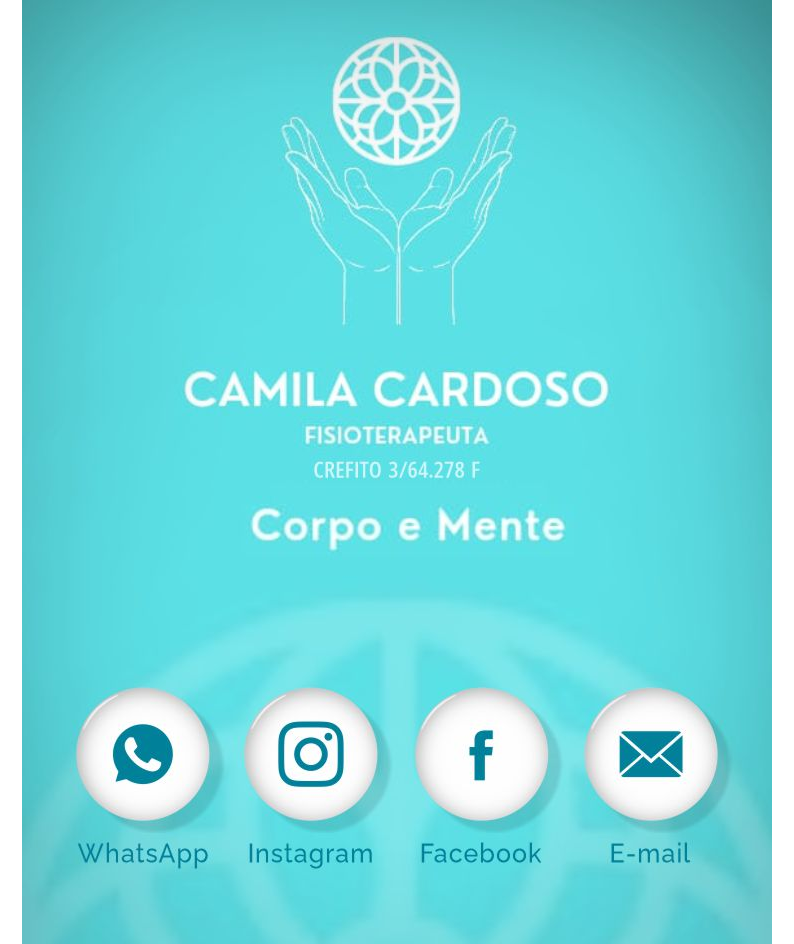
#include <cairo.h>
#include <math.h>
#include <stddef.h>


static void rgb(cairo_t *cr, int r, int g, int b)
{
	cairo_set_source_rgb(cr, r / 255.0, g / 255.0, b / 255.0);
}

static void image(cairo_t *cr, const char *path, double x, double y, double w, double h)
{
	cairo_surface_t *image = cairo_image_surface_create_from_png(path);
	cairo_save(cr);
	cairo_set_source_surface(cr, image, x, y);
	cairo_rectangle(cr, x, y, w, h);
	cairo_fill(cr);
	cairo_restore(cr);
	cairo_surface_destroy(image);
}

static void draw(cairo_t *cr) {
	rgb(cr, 255, 255, 255);
	cairo_paint(cr);
	image(cr, "image0.png", 22, 0, 750, 944);
}

int main(void) {
	cairo_surface_t *surface = cairo_image_surface_create(CAIRO_FORMAT_RGB24, 794, 944);
	cairo_t *cr = cairo_create(surface);
	cairo_font_options_t *options = cairo_font_options_create();
	cairo_font_options_set_hint_metrics(options, CAIRO_HINT_METRICS_OFF);
	cairo_font_options_set_hint_style(options, CAIRO_HINT_STYLE_NONE);
	cairo_set_font_options(cr, options);
	cairo_set_miter_limit(cr, 4);
	draw(cr);
	cairo_surface_write_to_png(surface, "render.png");
	cairo_font_options_destroy(options);
	cairo_destroy(cr);
	cairo_surface_destroy(surface);
	return 0;
}
